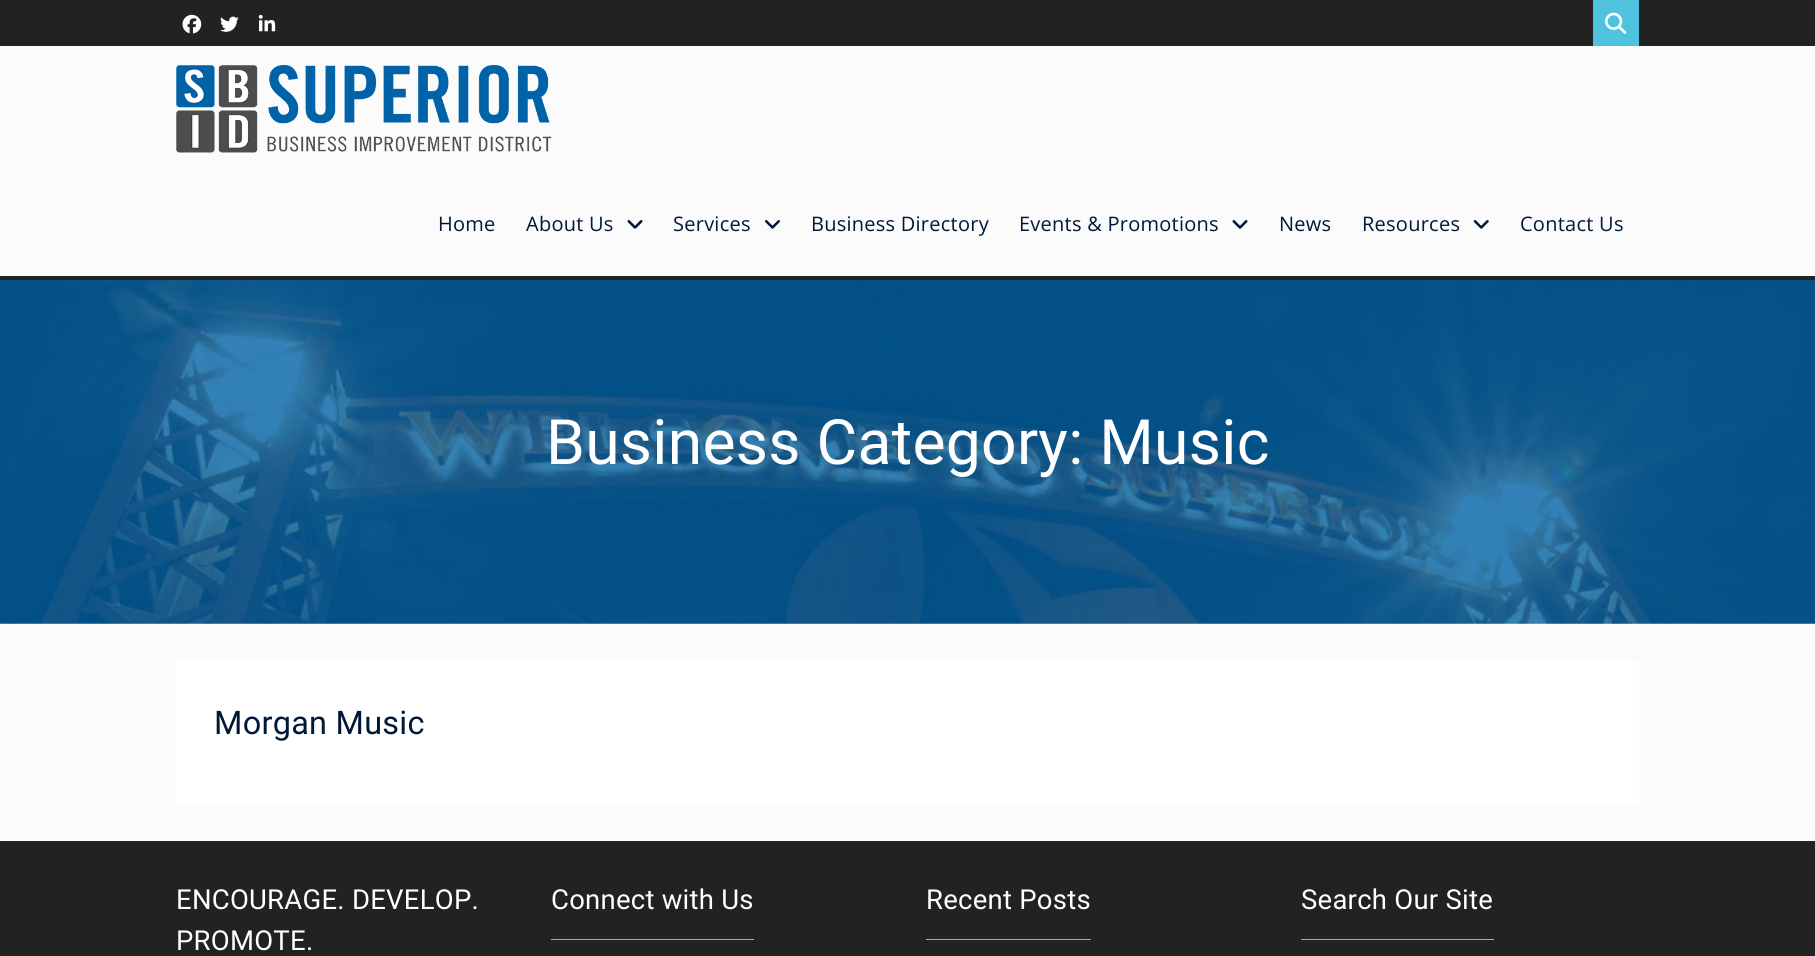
#include <cairo.h>
#include <math.h>
#include <stddef.h>


static void rgb(cairo_t *cr, int r, int g, int b)
{
	cairo_set_source_rgb(cr, r / 255.0, g / 255.0, b / 255.0);
}

static void face(cairo_t *cr, const char *family, double size, int italic, int bold)
{
	cairo_select_font_face(cr, family, italic ? CAIRO_FONT_SLANT_ITALIC : CAIRO_FONT_SLANT_NORMAL,
		bold ? CAIRO_FONT_WEIGHT_BOLD : CAIRO_FONT_WEIGHT_NORMAL);
	cairo_set_font_size(cr, size);
}

static void tracked(cairo_t *cr, double x, double y, const char *s, double letter, double word)
{
	cairo_move_to(cr, x, y);
	while (*s) {
		char ch[5] = {0};
		int n = 0;
		do ch[n++] = *s++; while ((*s & 0xC0) == 0x80);
		cairo_show_text(cr, ch);
		cairo_rel_move_to(cr, letter + word * (*ch == ' '), 0);
	}
}

static void rect(cairo_t *cr, double x, double y, double w, double h)
{
	cairo_rectangle(cr, x, y, w, h);
	cairo_fill(cr);
}

static void image(cairo_t *cr, const char *path, double x, double y, double w, double h)
{
	cairo_surface_t *image = cairo_image_surface_create_from_png(path);
	cairo_save(cr);
	cairo_set_source_surface(cr, image, x, y);
	cairo_rectangle(cr, x, y, w, h);
	cairo_fill(cr);
	cairo_restore(cr);
	cairo_surface_destroy(image);
}

static void draw(cairo_t *cr) {
	rgb(cr, 251, 251, 251);
	cairo_paint(cr);
	rgb(cr, 34, 34, 34);
	rect(cr, 0, 0, 1815, 46);
	image(cr, "image0.png", 182, 14, 20, 20);
	image(cr, "image1.png", 220, 16, 19, 16);
	image(cr, "image2.png", 258, 14, 18, 18);
	rgb(cr, 79, 195, 221);
	rect(cr, 1593, 0, 46, 46);
	image(cr, "image3.png", 1605, 12, 22, 22);
	rgb(cr, 34, 34, 34);
	rect(cr, 0, 276, 1815, 4);
	image(cr, "image4.png", 176, 65, 376, 88);
	face(cr, "Open Sans", 20, 0, 0);
	rgb(cr, 0, 24, 55);
	tracked(cr, 438, 231, "Home", 0.25, 0);
	tracked(cr, 526, 231, "About Us", 0.25, 0);
	image(cr, "image5.png", 627, 220, 16, 9);
	tracked(cr, 673, 231, "Services", 0.25, 0);
	image(cr, "image6.png", 765, 220, 15, 9);
	tracked(cr, 811, 231, "Business Directory", 0.25, 0);
	tracked(cr, 1019, 231, "Events & Promotions", 0.25, 0);
	image(cr, "image5.png", 1232, 220, 16, 9);
	tracked(cr, 1279, 231, "News", 0.25, 0);
	tracked(cr, 1362, 231, "Resources", 0.25, 0);
	image(cr, "image7.png", 1473, 220, 16, 9);
	tracked(cr, 1520, 231, "Contact Us", 0.25, 0);
	image(cr, "image8.png", 0, 280, 1815, 344);
	face(cr, "Roboto", 62.5, 0, 0);
	rgb(cr, 255, 255, 255);
	tracked(cr, 546, 464, "Business Category: Music", 0.25, 0);
	rect(cr, 176, 661, 1463, 143);
	face(cr, "Roboto", 32.5, 0, 0);
	rgb(cr, 0, 24, 55);
	tracked(cr, 214, 734, "Morgan Music", 0.25, 0);
	rgb(cr, 34, 34, 34);
	rect(cr, 0, 841, 1815, 115);
	face(cr, "Roboto", 27.5, 0, 0);
	rgb(cr, 255, 255, 255);
	tracked(cr, 176, 909, "ENCOURAGE. DEVELOP.", 0.25, 0);
	tracked(cr, 176, 950, "PROMOTE.", 0.25, 0);
	rgb(cr, 170, 170, 170);
	rect(cr, 551, 939, 203, 1);
	rgb(cr, 255, 255, 255);
	tracked(cr, 551, 909, "Connect with Us", 0.25, 0);
	rgb(cr, 170, 170, 170);
	rect(cr, 926, 939, 165, 1);
	rgb(cr, 255, 255, 255);
	tracked(cr, 926, 909, "Recent Posts", 0.25, 0);
	rgb(cr, 170, 170, 170);
	rect(cr, 1301, 939, 193, 1);
	rgb(cr, 255, 255, 255);
	tracked(cr, 1301, 909, "Search Our Site", 0.25, 0);
}

int main(void) {
	cairo_surface_t *surface = cairo_image_surface_create(CAIRO_FORMAT_RGB24, 1815, 956);
	cairo_t *cr = cairo_create(surface);
	cairo_font_options_t *options = cairo_font_options_create();
	cairo_font_options_set_hint_metrics(options, CAIRO_HINT_METRICS_OFF);
	cairo_font_options_set_hint_style(options, CAIRO_HINT_STYLE_NONE);
	cairo_set_font_options(cr, options);
	cairo_set_miter_limit(cr, 4);
	draw(cr);
	cairo_surface_write_to_png(surface, "render.png");
	cairo_font_options_destroy(options);
	cairo_destroy(cr);
	cairo_surface_destroy(surface);
	return 0;
}
